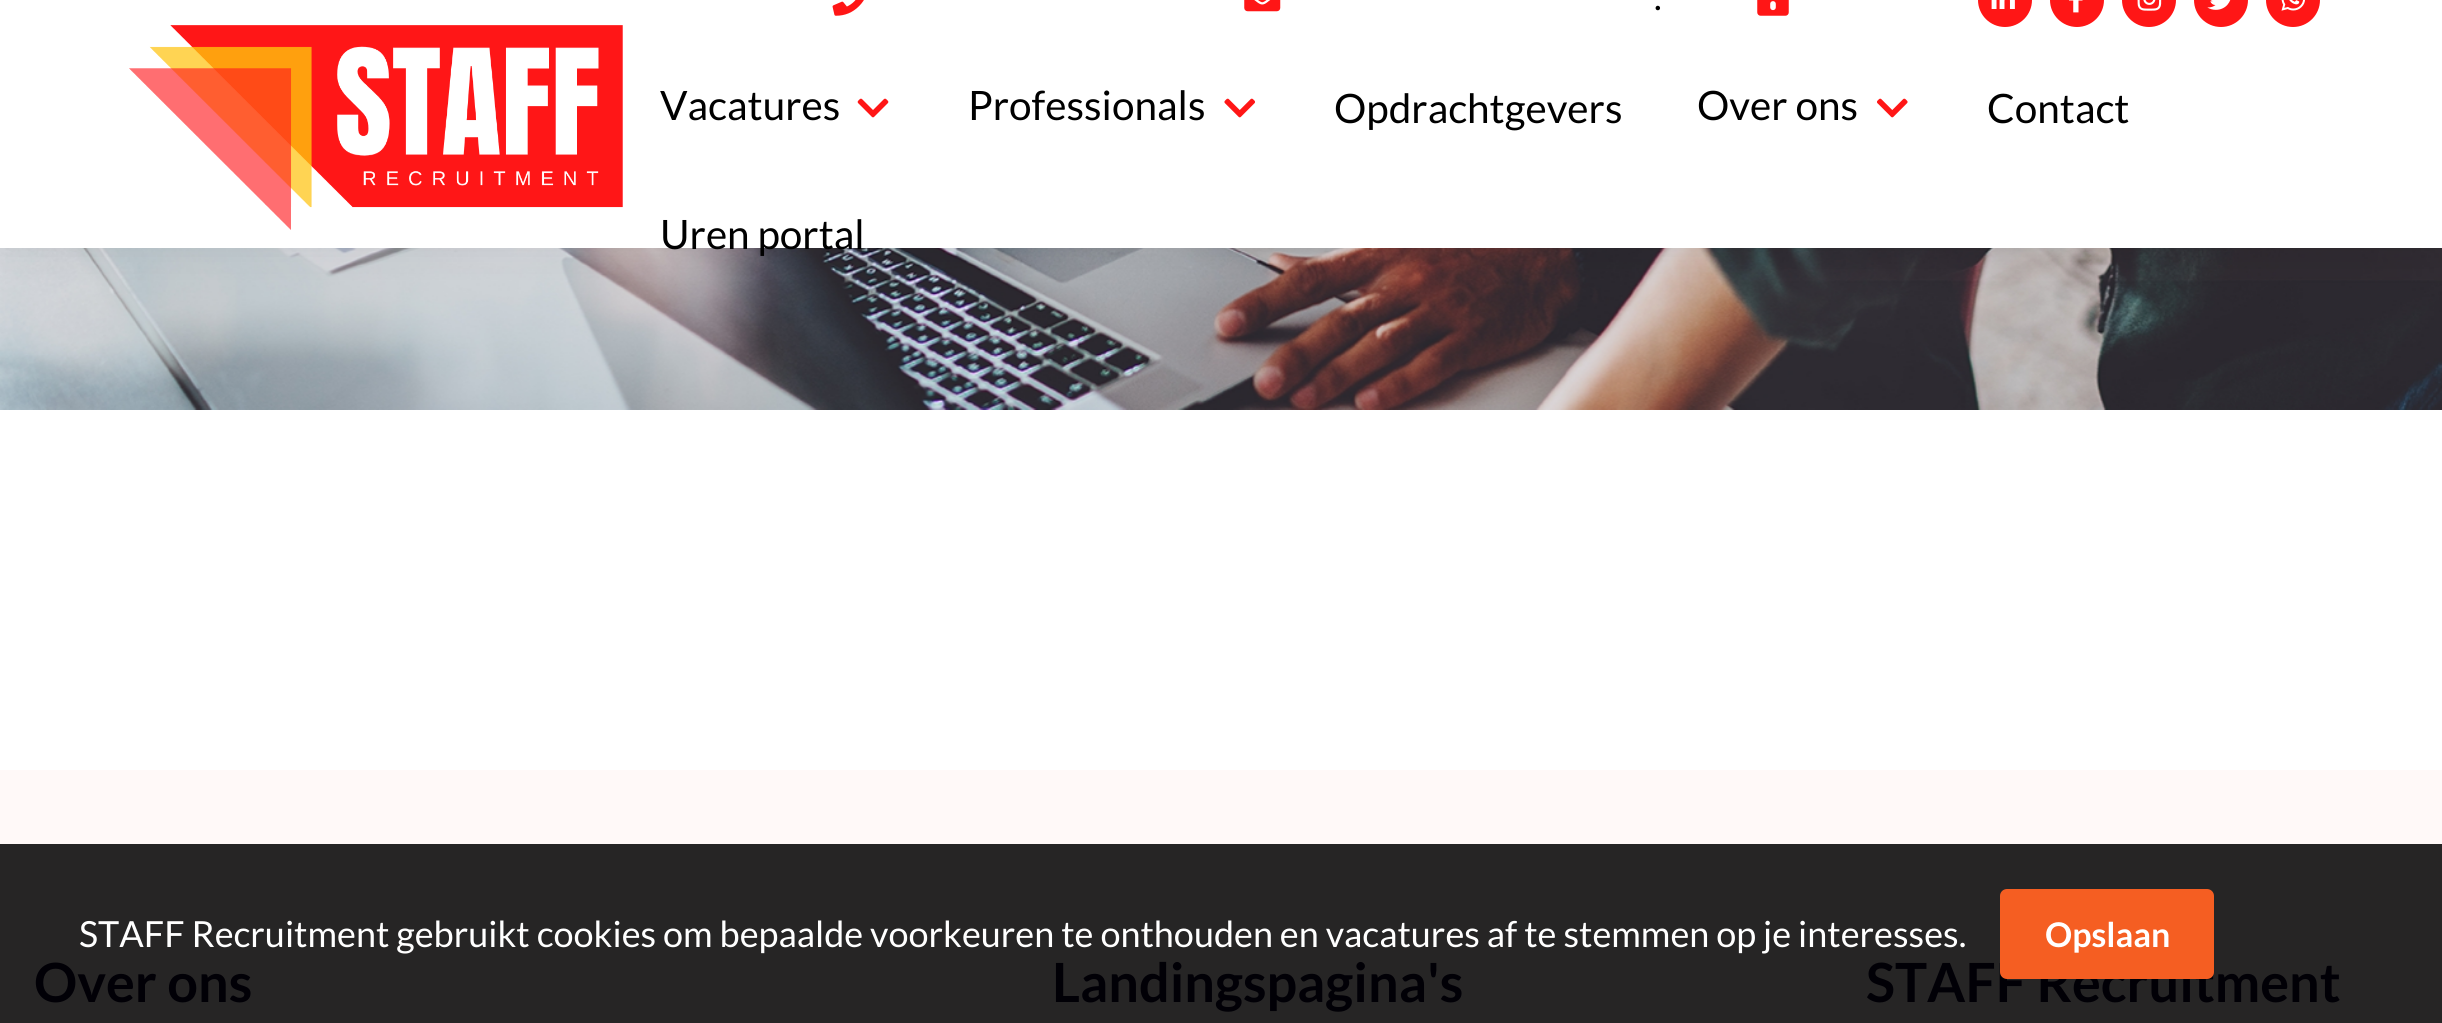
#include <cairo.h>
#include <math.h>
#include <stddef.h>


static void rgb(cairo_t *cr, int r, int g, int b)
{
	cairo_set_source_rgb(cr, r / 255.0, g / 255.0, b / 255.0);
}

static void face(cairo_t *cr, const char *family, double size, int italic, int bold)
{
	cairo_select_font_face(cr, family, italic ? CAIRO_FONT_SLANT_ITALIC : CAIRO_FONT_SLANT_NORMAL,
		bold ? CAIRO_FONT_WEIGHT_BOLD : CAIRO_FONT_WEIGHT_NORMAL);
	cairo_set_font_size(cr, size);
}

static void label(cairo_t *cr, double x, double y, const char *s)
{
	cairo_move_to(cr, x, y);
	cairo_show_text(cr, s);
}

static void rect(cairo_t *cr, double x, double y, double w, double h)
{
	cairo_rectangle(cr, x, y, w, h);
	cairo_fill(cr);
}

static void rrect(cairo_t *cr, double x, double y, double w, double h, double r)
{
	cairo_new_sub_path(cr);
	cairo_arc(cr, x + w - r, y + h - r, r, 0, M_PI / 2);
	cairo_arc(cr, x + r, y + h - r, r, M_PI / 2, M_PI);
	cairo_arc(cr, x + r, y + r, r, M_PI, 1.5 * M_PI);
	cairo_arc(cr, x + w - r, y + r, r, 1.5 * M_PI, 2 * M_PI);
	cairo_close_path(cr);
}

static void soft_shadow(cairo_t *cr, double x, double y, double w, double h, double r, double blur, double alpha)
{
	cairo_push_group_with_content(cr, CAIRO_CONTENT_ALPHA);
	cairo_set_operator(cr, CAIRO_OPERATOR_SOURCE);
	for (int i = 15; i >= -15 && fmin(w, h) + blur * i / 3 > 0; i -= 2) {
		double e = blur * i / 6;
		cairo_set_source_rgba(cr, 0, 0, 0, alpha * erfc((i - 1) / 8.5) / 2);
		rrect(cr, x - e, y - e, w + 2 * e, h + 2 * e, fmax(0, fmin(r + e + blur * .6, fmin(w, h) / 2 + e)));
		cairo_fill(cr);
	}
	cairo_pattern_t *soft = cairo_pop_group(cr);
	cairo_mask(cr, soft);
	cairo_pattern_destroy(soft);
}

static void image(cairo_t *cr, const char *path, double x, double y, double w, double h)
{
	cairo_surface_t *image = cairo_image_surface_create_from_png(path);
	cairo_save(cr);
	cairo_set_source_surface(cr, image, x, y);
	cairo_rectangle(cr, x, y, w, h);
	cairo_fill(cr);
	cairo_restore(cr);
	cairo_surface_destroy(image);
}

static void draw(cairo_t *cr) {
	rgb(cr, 255, 255, 255);
	cairo_paint(cr);
	image(cr, "image12.png", 0, 248, 2442, 162);
	rgb(cr, 0, 0, 0);
	soft_shadow(cr, 0, 7, 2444, 247, 0, 17, 0.05);
	rgb(cr, 255, 255, 255);
	rect(cr, 0, 0, 2442, 248);
	image(cr, "image0.png", 129, 25, 494, 205);
	image(cr, "image1.png", 832, 0, 32, 16);
	image(cr, "image2.png", 1244, 0, 37, 12);
	face(cr, "Lato", 36, 0, 0);
	rgb(cr, 0, 0, 0);
	label(cr, 1654, 10, ".");
	image(cr, "image3.png", 1757, 0, 32, 16);
	rgb(cr, 255, 22, 22);
	cairo_arc(cr, 2005, 0, 27, 0, 2 * M_PI);
	cairo_fill(cr);
	image(cr, "image4.png", 1991, 0, 24, 9);
	cairo_arc(cr, 2077, 0, 27, 0, 2 * M_PI);
	cairo_fill(cr);
	image(cr, "image5.png", 2069, 0, 14, 13);
	cairo_arc(cr, 2149, 0, 27, 0, 2 * M_PI);
	cairo_fill(cr);
	image(cr, "image6.png", 2137, 0, 25, 11);
	cairo_arc(cr, 2221, 0, 27, 0, 2 * M_PI);
	cairo_fill(cr);
	image(cr, "image7.png", 2207, 0, 24, 10);
	cairo_arc(cr, 2293, 0, 27, 0, 2 * M_PI);
	cairo_fill(cr);
	image(cr, "image8.png", 2281, 0, 24, 11);
	face(cr, "Lato", 40.5, 0, 0);
	rgb(cr, 0, 0, 0);
	label(cr, 660, 120, "Vacatures");
	image(cr, "image9.png", 857, 98, 32, 20);
	label(cr, 968, 120, "Professionals");
	image(cr, "image10.png", 1224, 98, 31, 20);
	label(cr, 1334, 123, "Opdrachtgevers");
	label(cr, 1697, 120, "Over ons");
	image(cr, "image11.png", 1877, 98, 31, 20);
	label(cr, 1987, 123, "Contact");
	label(cr, 660, 249, "Uren portal");
	rgb(cr, 38, 37, 37);
	rect(cr, 0, 844, 2442, 179);
	face(cr, "Lato", 36, 0, 0);
	rgb(cr, 255, 255, 255);
	label(cr, 79, 947, "STAFF Recruitment gebruikt cookies om bepaalde voorkeuren te onthouden en vacatures af te stemmen op je interesses.");
	face(cr, "Lato", 54, 0, 1);
	rgb(cr, 1, 0, 6);
	label(cr, 1866, 1002, "STAFF Recruitment");
	rgb(cr, 245, 94, 34);
	rrect(cr, 2000, 889, 214, 90, 7);
	cairo_fill(cr);
	face(cr, "Lato", 34, 0, 1);
	rgb(cr, 255, 255, 255);
	label(cr, 2045, 947, "Opslaan");
	rgb(cr, 255, 249, 248);
	rect(cr, 0, 770, 2442, 74);
	face(cr, "Lato", 54, 0, 1);
	rgb(cr, 1, 0, 6);
	label(cr, 34, 1002, "Over ons");
	label(cr, 1052, 1002, "Landingspagina's");
}

int main(void) {
	cairo_surface_t *surface = cairo_image_surface_create(CAIRO_FORMAT_RGB24, 2442, 1023);
	cairo_t *cr = cairo_create(surface);
	cairo_font_options_t *options = cairo_font_options_create();
	cairo_font_options_set_hint_metrics(options, CAIRO_HINT_METRICS_OFF);
	cairo_font_options_set_hint_style(options, CAIRO_HINT_STYLE_NONE);
	cairo_set_font_options(cr, options);
	cairo_set_miter_limit(cr, 4);
	draw(cr);
	cairo_surface_write_to_png(surface, "render.png");
	cairo_font_options_destroy(options);
	cairo_destroy(cr);
	cairo_surface_destroy(surface);
	return 0;
}
